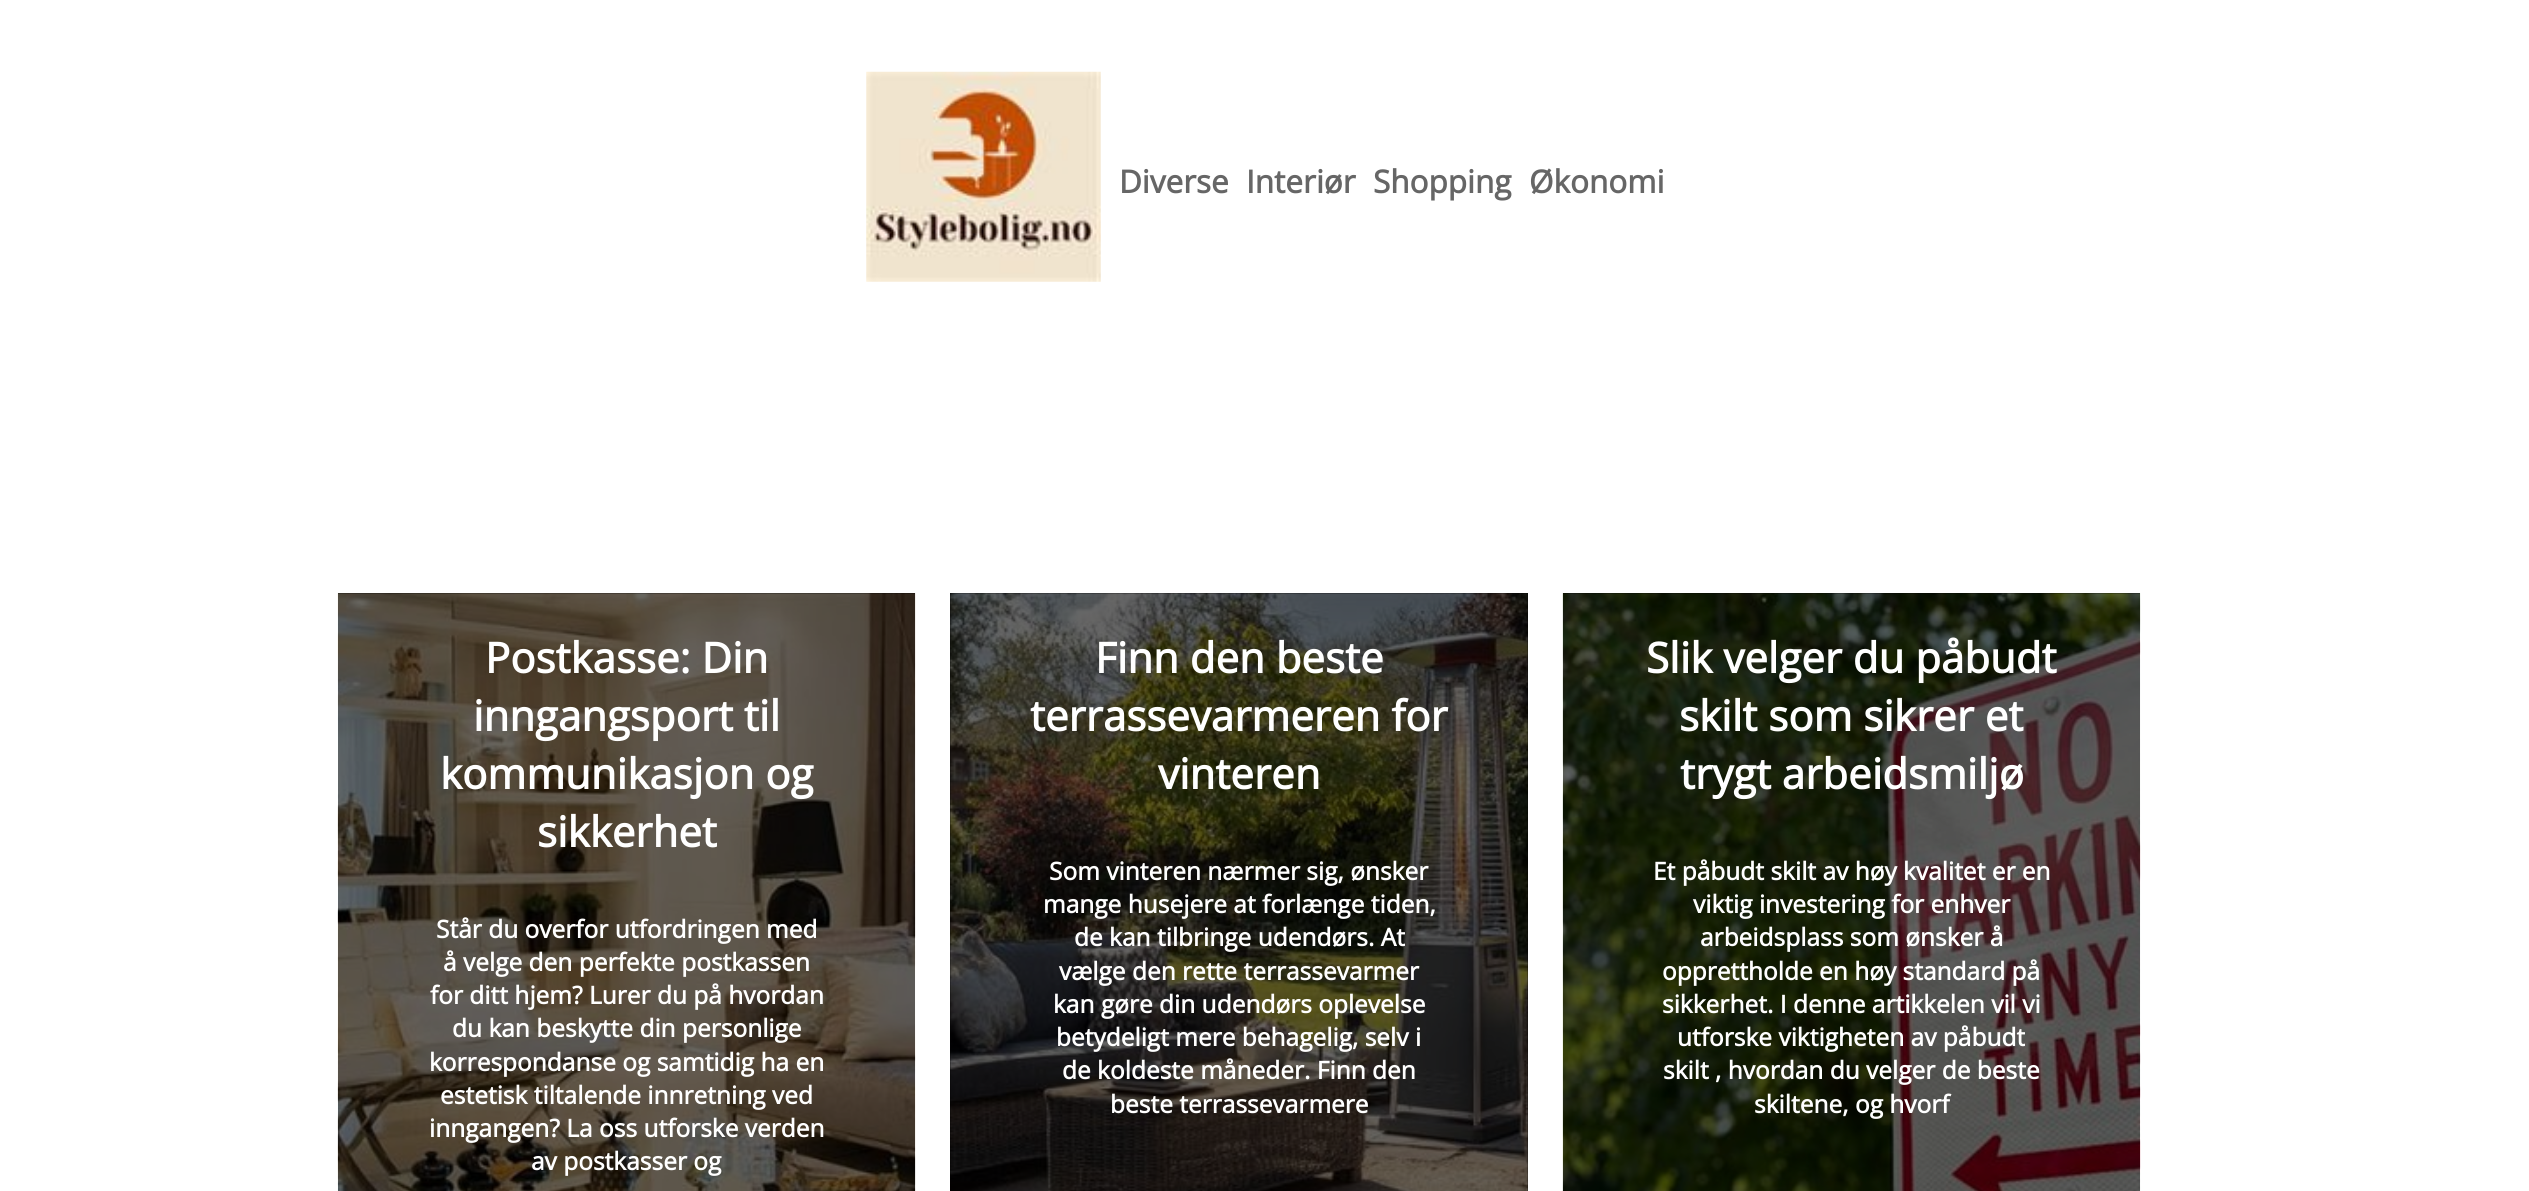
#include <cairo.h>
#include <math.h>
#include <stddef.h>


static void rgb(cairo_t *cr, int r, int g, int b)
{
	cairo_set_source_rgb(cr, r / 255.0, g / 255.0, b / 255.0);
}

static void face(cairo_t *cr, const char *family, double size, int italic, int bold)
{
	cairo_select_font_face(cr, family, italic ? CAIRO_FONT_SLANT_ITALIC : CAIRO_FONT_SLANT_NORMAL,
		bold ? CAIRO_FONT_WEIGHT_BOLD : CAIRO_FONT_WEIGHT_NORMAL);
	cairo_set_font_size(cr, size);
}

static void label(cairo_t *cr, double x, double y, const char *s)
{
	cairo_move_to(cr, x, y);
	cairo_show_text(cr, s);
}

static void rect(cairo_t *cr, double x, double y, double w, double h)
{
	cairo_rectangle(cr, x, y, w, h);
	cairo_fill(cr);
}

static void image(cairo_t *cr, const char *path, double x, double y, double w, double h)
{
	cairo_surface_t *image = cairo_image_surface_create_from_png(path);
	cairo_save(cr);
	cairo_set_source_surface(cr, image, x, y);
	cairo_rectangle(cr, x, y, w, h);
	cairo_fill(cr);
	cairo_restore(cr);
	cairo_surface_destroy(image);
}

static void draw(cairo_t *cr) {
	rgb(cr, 255, 255, 255);
	cairo_paint(cr);
	image(cr, "image0.png", 866, 71, 235, 211);
	face(cr, "Open Sans", 31.5, 0, 1);
	rgb(cr, 102, 102, 102);
	label(cr, 1119, 193, "Diverse");
	label(cr, 1246, 193, "Interiør");
	label(cr, 1373, 193, "Shopping");
	label(cr, 1529, 193, "Økonomi");
	rgb(cr, 0, 0, 0);
	rect(cr, 338, 593, 577, 598);
	image(cr, "image1.png", 337, 593, 579, 598);
	face(cr, "Open Sans", 42, 0, 1);
	rgb(cr, 255, 255, 255);
	label(cr, 485, 673, "Postkasse: Din");
	label(cr, 473, 731, "inngangsport til");
	label(cr, 440, 789, "kommunikasjon og");
	label(cr, 537, 847, "sikkerhet");
	face(cr, "Open Sans", 24.5, 0, 1);
	label(cr, 436, 938, "Står du overfor utfordringen med");
	label(cr, 443, 971, "å velge den perfekte postkassen");
	label(cr, 430, 1004, "for ditt hjem? Lurer du på hvordan");
	label(cr, 452, 1037, "du kan beskytte din personlige");
	label(cr, 429, 1071, "korrespondanse og samtidig ha en");
	label(cr, 440, 1104, "estetisk tiltalende innretning ved");
	label(cr, 429, 1137, "inngangen? La oss utforske verden");
	label(cr, 531, 1170, "av postkasser og");
	rgb(cr, 0, 0, 0);
	rect(cr, 950, 593, 578, 598);
	image(cr, "image2.png", 950, 593, 578, 598);
	face(cr, "Open Sans", 42, 0, 1);
	rgb(cr, 255, 255, 255);
	label(cr, 1095, 673, "Finn den beste");
	label(cr, 1030, 731, "terrassevarmeren for");
	label(cr, 1158, 789, "vinteren");
	face(cr, "Open Sans", 24.5, 0, 1);
	label(cr, 1049, 880, "Som vinteren nærmer sig, ønsker");
	label(cr, 1043, 913, "mange husejere at forlænge tiden,");
	label(cr, 1074, 946, "de kan tilbringe udendørs. At");
	label(cr, 1059, 980, "vælge den rette terrassevarmer");
	label(cr, 1053, 1013, "kan gøre din udendørs oplevelse");
	label(cr, 1056, 1046, "betydeligt mere behagelig, selv i");
	label(cr, 1062, 1079, "de koldeste måneder. Finn den");
	label(cr, 1110, 1113, "beste terrassevarmere");
	rgb(cr, 0, 0, 0);
	rect(cr, 1563, 593, 577, 598);
	image(cr, "image3.png", 1562, 593, 579, 598);
	face(cr, "Open Sans", 42, 0, 1);
	rgb(cr, 255, 255, 255);
	label(cr, 1646, 673, "Slik velger du påbudt");
	label(cr, 1679, 731, "skilt som sikrer et");
	label(cr, 1680, 789, "trygt arbeidsmiljø");
	face(cr, "Open Sans", 24.5, 0, 1);
	label(cr, 1653, 880, "Et påbudt skilt av høy kvalitet er en");
	label(cr, 1693, 913, "viktig investering for enhver");
	label(cr, 1700, 946, "arbeidsplass som ønsker å");
	label(cr, 1662, 980, "opprettholde en høy standard på");
	label(cr, 1662, 1013, "sikkerhet. I denne artikkelen vil vi");
	label(cr, 1677, 1046, "utforske viktigheten av påbudt");
	label(cr, 1663, 1079, "skilt , hvordan du velger de beste");
	label(cr, 1754, 1113, "skiltene, og hvorf");
}

int main(void) {
	cairo_surface_t *surface = cairo_image_surface_create(CAIRO_FORMAT_RGB24, 2529, 1191);
	cairo_t *cr = cairo_create(surface);
	cairo_font_options_t *options = cairo_font_options_create();
	cairo_font_options_set_hint_metrics(options, CAIRO_HINT_METRICS_OFF);
	cairo_font_options_set_hint_style(options, CAIRO_HINT_STYLE_NONE);
	cairo_set_font_options(cr, options);
	cairo_set_miter_limit(cr, 4);
	draw(cr);
	cairo_surface_write_to_png(surface, "render.png");
	cairo_font_options_destroy(options);
	cairo_destroy(cr);
	cairo_surface_destroy(surface);
	return 0;
}
